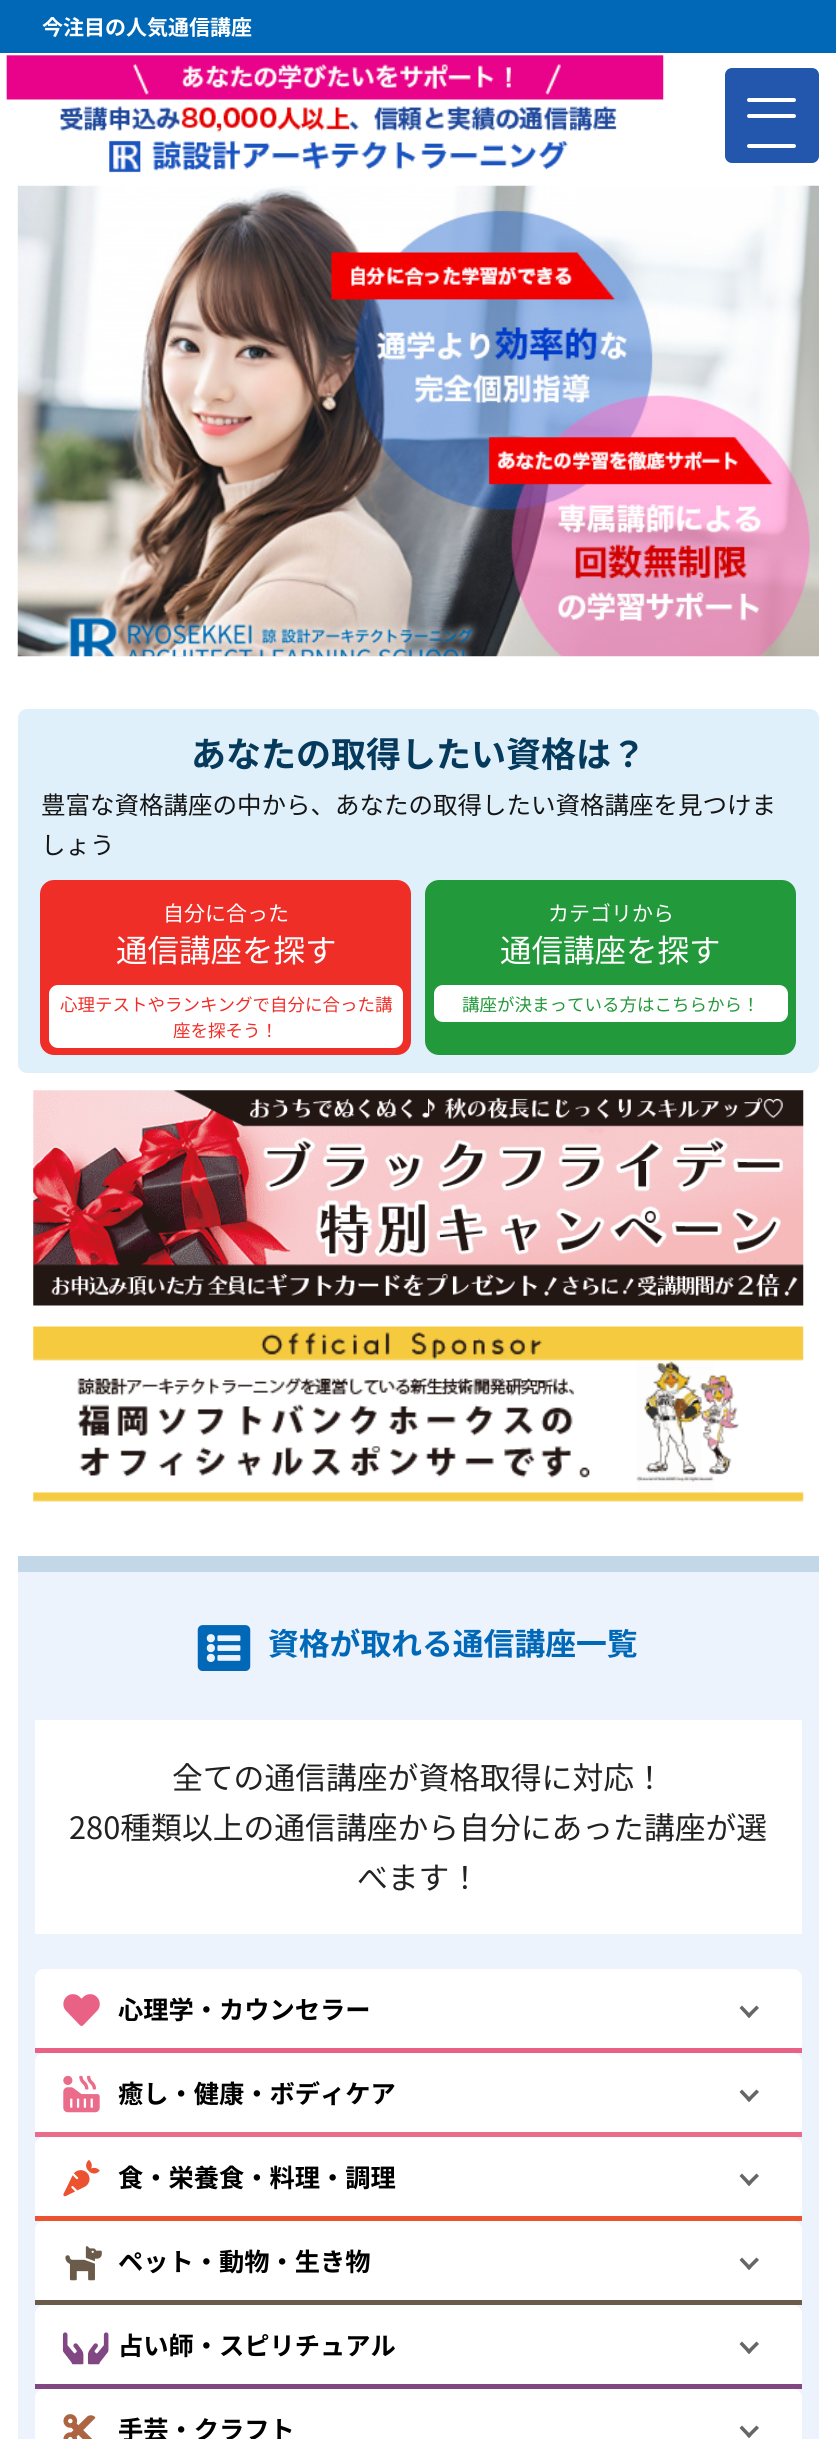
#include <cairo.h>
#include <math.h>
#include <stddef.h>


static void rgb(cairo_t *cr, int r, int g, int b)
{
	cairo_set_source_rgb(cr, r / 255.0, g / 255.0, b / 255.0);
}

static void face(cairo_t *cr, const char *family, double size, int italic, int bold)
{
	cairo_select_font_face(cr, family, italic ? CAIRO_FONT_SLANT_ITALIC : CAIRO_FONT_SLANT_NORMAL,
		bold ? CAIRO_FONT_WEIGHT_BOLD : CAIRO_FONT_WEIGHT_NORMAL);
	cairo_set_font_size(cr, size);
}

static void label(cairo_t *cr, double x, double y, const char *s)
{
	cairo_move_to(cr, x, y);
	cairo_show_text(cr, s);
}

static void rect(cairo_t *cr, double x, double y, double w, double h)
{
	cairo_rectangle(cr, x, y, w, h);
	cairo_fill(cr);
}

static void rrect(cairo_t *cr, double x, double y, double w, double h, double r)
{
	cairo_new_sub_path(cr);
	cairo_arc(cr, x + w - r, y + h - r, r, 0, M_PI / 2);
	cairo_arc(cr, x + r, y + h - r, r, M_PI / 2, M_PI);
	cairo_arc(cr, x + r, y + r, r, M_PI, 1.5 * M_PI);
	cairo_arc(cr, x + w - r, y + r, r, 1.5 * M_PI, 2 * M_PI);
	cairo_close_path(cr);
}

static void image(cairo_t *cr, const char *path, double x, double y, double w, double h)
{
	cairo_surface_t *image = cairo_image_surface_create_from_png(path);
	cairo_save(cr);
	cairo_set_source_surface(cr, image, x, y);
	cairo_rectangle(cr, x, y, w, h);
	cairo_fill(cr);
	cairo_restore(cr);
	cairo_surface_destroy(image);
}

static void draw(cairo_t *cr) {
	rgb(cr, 255, 255, 255);
	cairo_paint(cr);
	rgb(cr, 0, 104, 183);
	rect(cr, 0, 0, 836, 53);
	face(cr, "Noto Sans CJK JP", 21, 0, 1);
	rgb(cr, 255, 255, 255);
	label(cr, 42, 35, "今注目の人気通信講座");
	image(cr, "image0.png", 6, 55, 658, 118);
	rgb(cr, 34, 87, 173);
	rrect(cr, 725, 68, 94, 95, 7);
	cairo_fill(cr);
	rgb(cr, 255, 255, 255);
	rrect(cr, 747, 114, 49, 4, 2);
	cairo_fill(cr);
	rrect(cr, 747, 98, 49, 4, 2);
	cairo_fill(cr);
	rrect(cr, 747, 144, 49, 4, 2);
	cairo_fill(cr);
	image(cr, "image1.png", 17, 185, 802, 472);
	rgb(cr, 223, 240, 250);
	rrect(cr, 18, 709, 801, 364, 9);
	cairo_fill(cr);
	face(cr, "Noto Sans CJK JP", 35, 0, 1);
	rgb(cr, 5, 58, 92);
	label(cr, 191, 767, "あなたの取得したい資格は？");
	face(cr, "Noto Sans CJK JP", 24.5, 0, 0);
	rgb(cr, 21, 21, 21);
	label(cr, 41, 814, "豊富な資格講座の中から、あなたの取得したい資格講座を見つけま");
	label(cr, 41, 854, "しょう");
	rgb(cr, 240, 46, 40);
	rrect(cr, 40, 880, 371, 175, 14);
	cairo_fill(cr);
	face(cr, "Noto Sans CJK JP", 21, 0, 0);
	rgb(cr, 255, 255, 255);
	label(cr, 163, 921, "自分に合った");
	face(cr, "Noto Sans CJK JP", 31.5, 0, 0);
	label(cr, 116, 962, "通信講座を探す");
	rrect(cr, 49, 985, 354, 63, 9);
	cairo_fill(cr);
	face(cr, "Noto Sans CJK JP", 17.5, 0, 0);
	rgb(cr, 240, 46, 40);
	label(cr, 60, 1011, "心理テストやランキングで自分に合った講");
	label(cr, 173, 1037, "座を探そう！");
	rgb(cr, 34, 153, 58);
	rrect(cr, 425, 880, 371, 175, 14);
	cairo_fill(cr);
	face(cr, "Noto Sans CJK JP", 21, 0, 0);
	rgb(cr, 255, 255, 255);
	label(cr, 548, 921, "カテゴリから");
	face(cr, "Noto Sans CJK JP", 31.5, 0, 0);
	label(cr, 500, 962, "通信講座を探す");
	rrect(cr, 434, 985, 354, 37, 9);
	cairo_fill(cr);
	face(cr, "Noto Sans CJK JP", 17.5, 0, 0);
	rgb(cr, 34, 153, 58);
	label(cr, 462, 1011, "講座が決まっている方はこちらから！");
	image(cr, "image2.png", 33, 1090, 771, 216);
	image(cr, "image3.png", 33, 1326, 771, 176);
	rgb(cr, 237, 243, 252);
	rect(cr, 18, 1572, 801, 867);
	rgb(cr, 194, 216, 232);
	rect(cr, 18, 1556, 801, 16);
	image(cr, "image4.png", 197, 1625, 54, 46);
	face(cr, "Noto Sans CJK JP", 30.8, 0, 1);
	rgb(cr, 0, 104, 183);
	label(cr, 268, 1655, "資格が取れる通信講座一覧");
	rgb(cr, 255, 255, 255);
	rect(cr, 35, 1720, 767, 214);
	face(cr, "Noto Sans CJK JP", 30.8, 0, 0);
	rgb(cr, 34, 34, 34);
	label(cr, 172, 1789, "全ての通信講座が資格取得に対応！");
	label(cr, 69, 1839, "280種類以上の通信講座から自分にあった講座が選");
	label(cr, 357, 1889, "べます！");
	rgb(cr, 255, 255, 255);
	rrect(cr, 35, 1969, 767, 84, 9);
	cairo_fill(cr);
	rgb(cr, 234, 97, 134);
	rect(cr, 35, 2048, 767, 5);
	image(cr, "image5.png", 63, 1994, 37, 32);
	face(cr, "Noto Sans CJK JP", 25.25, 0, 1);
	rgb(cr, 0, 0, 0);
	label(cr, 118, 2019, "心理学・カウンセラー");
	rgb(cr, 102, 102, 102);
	cairo_new_path(cr);
	cairo_move_to(cr, 759, 2008);
	cairo_line_to(cr, 749, 2018);
	cairo_line_to(cr, 746.5, 2015.5);
	cairo_line_to(cr, 756.5, 2005.5);
	cairo_close_path(cr);
	cairo_fill(cr);
	cairo_new_path(cr);
	cairo_move_to(cr, 751.5, 2015.5);
	cairo_line_to(cr, 749, 2018);
	cairo_line_to(cr, 739.5, 2008);
	cairo_line_to(cr, 742, 2005.5);
	cairo_close_path(cr);
	cairo_fill(cr);
	rgb(cr, 255, 255, 255);
	rrect(cr, 35, 2053, 767, 84, 9);
	cairo_fill(cr);
	rgb(cr, 235, 107, 139);
	rect(cr, 35, 2132, 767, 5);
	image(cr, "image6.png", 63, 2075, 37, 38);
	rgb(cr, 0, 0, 0);
	label(cr, 118, 2103, "癒し・健康・ボディケア");
	rgb(cr, 102, 102, 102);
	cairo_new_path(cr);
	cairo_move_to(cr, 759, 2092);
	cairo_line_to(cr, 749, 2102);
	cairo_line_to(cr, 746.5, 2099.5);
	cairo_line_to(cr, 756.5, 2089.5);
	cairo_close_path(cr);
	cairo_fill(cr);
	cairo_new_path(cr);
	cairo_move_to(cr, 751.5, 2099.5);
	cairo_line_to(cr, 749, 2102);
	cairo_line_to(cr, 739.5, 2092);
	cairo_line_to(cr, 742, 2089.5);
	cairo_close_path(cr);
	cairo_fill(cr);
	rgb(cr, 255, 255, 255);
	rrect(cr, 35, 2137, 767, 84, 9);
	cairo_fill(cr);
	rgb(cr, 234, 82, 48);
	rect(cr, 35, 2216, 767, 5);
	image(cr, "image7.png", 63, 2160, 37, 37);
	rgb(cr, 0, 0, 0);
	label(cr, 118, 2187, "食・栄養食・料理・調理");
	rgb(cr, 102, 102, 102);
	cairo_new_path(cr);
	cairo_move_to(cr, 759, 2176);
	cairo_line_to(cr, 749, 2186);
	cairo_line_to(cr, 746.5, 2183.5);
	cairo_line_to(cr, 756.5, 2173.5);
	cairo_close_path(cr);
	cairo_fill(cr);
	cairo_new_path(cr);
	cairo_move_to(cr, 751.5, 2183.5);
	cairo_line_to(cr, 749, 2186);
	cairo_line_to(cr, 739.5, 2176);
	cairo_line_to(cr, 742, 2173.5);
	cairo_close_path(cr);
	cairo_fill(cr);
	rgb(cr, 255, 255, 255);
	rrect(cr, 35, 2221, 767, 84, 9);
	cairo_fill(cr);
	rgb(cr, 107, 91, 74);
	rect(cr, 35, 2300, 767, 5);
	image(cr, "image8.png", 65, 2246, 37, 35);
	rgb(cr, 0, 0, 0);
	label(cr, 118, 2271, "ペット・動物・生き物");
	rgb(cr, 102, 102, 102);
	cairo_new_path(cr);
	cairo_move_to(cr, 759, 2260);
	cairo_line_to(cr, 749, 2270);
	cairo_line_to(cr, 746.5, 2267.5);
	cairo_line_to(cr, 756.5, 2257.5);
	cairo_close_path(cr);
	cairo_fill(cr);
	cairo_new_path(cr);
	cairo_move_to(cr, 751.5, 2267.5);
	cairo_line_to(cr, 749, 2270);
	cairo_line_to(cr, 739.5, 2260);
	cairo_line_to(cr, 742, 2257.5);
	cairo_close_path(cr);
	cairo_fill(cr);
	rgb(cr, 255, 255, 255);
	rrect(cr, 35, 2305, 767, 84, 9);
	cairo_fill(cr);
	rgb(cr, 128, 71, 131);
	rect(cr, 35, 2384, 767, 5);
	image(cr, "image9.png", 62, 2332, 47, 33);
	rgb(cr, 0, 0, 0);
	label(cr, 118, 2355, "占い師・スピリチュアル");
	rgb(cr, 102, 102, 102);
	cairo_new_path(cr);
	cairo_move_to(cr, 759, 2344);
	cairo_line_to(cr, 749, 2354);
	cairo_line_to(cr, 746.5, 2351.5);
	cairo_line_to(cr, 756.5, 2341.5);
	cairo_close_path(cr);
	cairo_fill(cr);
	cairo_new_path(cr);
	cairo_move_to(cr, 751.5, 2351.5);
	cairo_line_to(cr, 749, 2354);
	cairo_line_to(cr, 739.5, 2344);
	cairo_line_to(cr, 742, 2341.5);
	cairo_close_path(cr);
	cairo_fill(cr);
	rgb(cr, 255, 255, 255);
	rrect(cr, 35, 2389, 767, 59, 9);
	cairo_fill(cr);
	image(cr, "image10.png", 63, 2414, 33, 25);
	rgb(cr, 0, 0, 0);
	label(cr, 118, 2439, "手芸・クラフト");
	rgb(cr, 102, 102, 102);
	cairo_new_path(cr);
	cairo_move_to(cr, 759, 2428);
	cairo_line_to(cr, 749, 2438);
	cairo_line_to(cr, 746.5, 2435.5);
	cairo_line_to(cr, 756.5, 2425.5);
	cairo_close_path(cr);
	cairo_fill(cr);
	cairo_new_path(cr);
	cairo_move_to(cr, 751.5, 2435.5);
	cairo_line_to(cr, 749, 2438);
	cairo_line_to(cr, 739.5, 2428);
	cairo_line_to(cr, 742, 2425.5);
	cairo_close_path(cr);
	cairo_fill(cr);
}

int main(void) {
	cairo_surface_t *surface = cairo_image_surface_create(CAIRO_FORMAT_RGB24, 836, 2439);
	cairo_t *cr = cairo_create(surface);
	cairo_font_options_t *options = cairo_font_options_create();
	cairo_font_options_set_hint_metrics(options, CAIRO_HINT_METRICS_OFF);
	cairo_font_options_set_hint_style(options, CAIRO_HINT_STYLE_NONE);
	cairo_set_font_options(cr, options);
	cairo_set_miter_limit(cr, 4);
	draw(cr);
	cairo_surface_write_to_png(surface, "render.png");
	cairo_font_options_destroy(options);
	cairo_destroy(cr);
	cairo_surface_destroy(surface);
	return 0;
}
